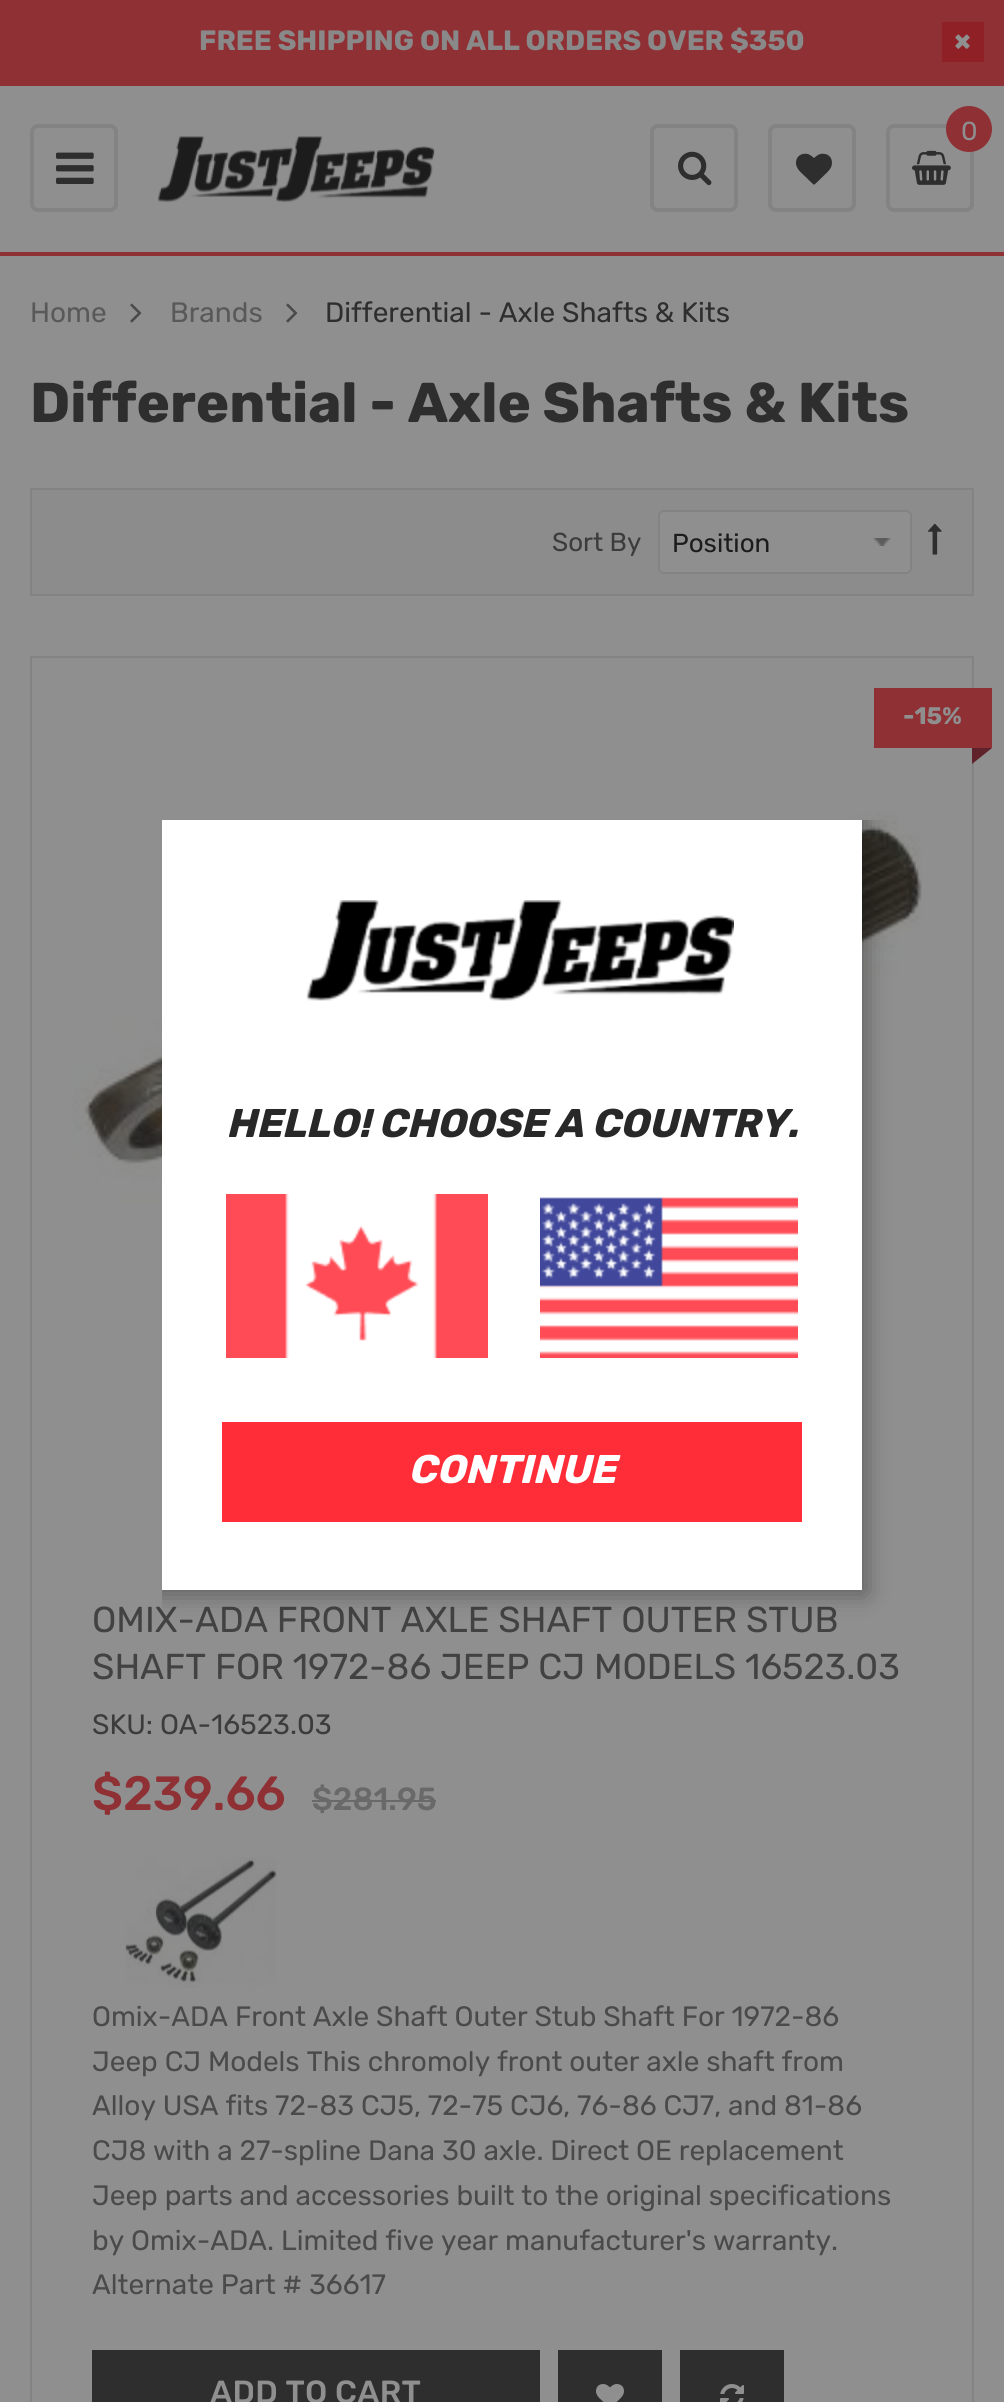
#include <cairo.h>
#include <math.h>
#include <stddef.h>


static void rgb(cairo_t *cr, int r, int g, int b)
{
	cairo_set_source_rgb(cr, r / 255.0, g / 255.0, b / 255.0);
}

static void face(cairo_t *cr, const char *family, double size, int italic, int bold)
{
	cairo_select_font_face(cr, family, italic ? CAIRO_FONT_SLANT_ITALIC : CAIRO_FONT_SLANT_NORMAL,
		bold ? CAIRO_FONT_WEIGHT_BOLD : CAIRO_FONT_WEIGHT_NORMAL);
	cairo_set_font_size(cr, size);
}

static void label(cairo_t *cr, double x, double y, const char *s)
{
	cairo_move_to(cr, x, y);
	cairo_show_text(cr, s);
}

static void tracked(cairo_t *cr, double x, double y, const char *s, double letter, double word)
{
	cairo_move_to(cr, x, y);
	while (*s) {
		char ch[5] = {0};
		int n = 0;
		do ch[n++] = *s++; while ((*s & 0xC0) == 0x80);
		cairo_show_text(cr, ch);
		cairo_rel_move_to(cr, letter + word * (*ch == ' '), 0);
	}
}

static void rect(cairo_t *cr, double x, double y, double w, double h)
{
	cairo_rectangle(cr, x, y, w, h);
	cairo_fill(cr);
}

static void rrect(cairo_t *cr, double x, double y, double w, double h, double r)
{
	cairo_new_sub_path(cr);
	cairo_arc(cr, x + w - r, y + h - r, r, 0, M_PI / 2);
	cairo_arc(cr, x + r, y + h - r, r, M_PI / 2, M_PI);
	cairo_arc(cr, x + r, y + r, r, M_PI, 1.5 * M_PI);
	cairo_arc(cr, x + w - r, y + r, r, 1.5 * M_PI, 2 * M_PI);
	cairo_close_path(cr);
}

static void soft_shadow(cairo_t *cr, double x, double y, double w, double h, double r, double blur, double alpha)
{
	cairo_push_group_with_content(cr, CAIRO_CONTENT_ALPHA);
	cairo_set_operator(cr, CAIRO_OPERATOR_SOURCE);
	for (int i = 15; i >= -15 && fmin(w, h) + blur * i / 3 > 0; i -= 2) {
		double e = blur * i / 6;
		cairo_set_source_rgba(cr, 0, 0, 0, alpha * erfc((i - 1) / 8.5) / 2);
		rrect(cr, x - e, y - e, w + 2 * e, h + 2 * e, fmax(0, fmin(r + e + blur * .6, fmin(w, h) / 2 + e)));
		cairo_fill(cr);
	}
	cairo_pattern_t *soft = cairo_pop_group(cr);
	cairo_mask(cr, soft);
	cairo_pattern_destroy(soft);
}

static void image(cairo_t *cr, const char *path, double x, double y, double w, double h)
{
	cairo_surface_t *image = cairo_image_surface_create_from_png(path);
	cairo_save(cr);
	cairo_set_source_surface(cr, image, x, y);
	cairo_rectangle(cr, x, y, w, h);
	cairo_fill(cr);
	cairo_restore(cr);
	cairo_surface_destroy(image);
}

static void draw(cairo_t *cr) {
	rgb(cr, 143, 143, 143);
	cairo_paint(cr);
	rgb(cr, 143, 48, 53);
	rect(cr, 0, 0, 1004, 86);
	face(cr, "Rubik", 28, 0, 1);
	rgb(cr, 137, 137, 137);
	label(cr, 199, 50, "FREE SHIPPING ON ALL ORDERS OVER $350");
	rgb(cr, 143, 32, 38);
	rect(cr, 942, 22, 42, 40);
	rgb(cr, 143, 143, 143);
	label(cr, 954, 51, "×");
	rgb(cr, 143, 48, 53);
	rect(cr, 0, 252, 1004, 4);
	rrect(cr, 32, 126, 84, 84, 6);
	rgb(cr, 131, 131, 131);
	cairo_set_line_width(cr, 4);
	cairo_stroke(cr);
	image(cr, "image0.png", 56, 152, 38, 32);
	image(cr, "image1.png", 157, 136, 278, 67);
	rrect(cr, 652, 126, 84, 84, 6);
	cairo_stroke(cr);
	image(cr, "image2.png", 678, 151, 34, 35);
	rrect(cr, 770, 126, 84, 84, 6);
	cairo_stroke(cr);
	image(cr, "image3.png", 796, 153, 36, 32);
	rrect(cr, 888, 126, 84, 84, 6);
	cairo_stroke(cr);
	image(cr, "image4.png", 912, 150, 39, 35);
	rgb(cr, 143, 48, 53);
	cairo_arc(cr, 969, 129, 23, 0, 2 * M_PI);
	cairo_fill(cr);
	face(cr, "Rubik Light", 26, 0, 0);
	rgb(cr, 143, 143, 143);
	label(cr, 961, 140, "0");
	face(cr, "Rubik Light", 28, 0, 0);
	rgb(cr, 89, 89, 89);
	label(cr, 30, 322, "Home");
	image(cr, "image5.png", 130, 303, 12, 20);
	label(cr, 170, 322, "Brands");
	image(cr, "image5.png", 286, 303, 12, 20);
	rgb(cr, 46, 46, 46);
	label(cr, 325, 322, "Differential - Axle Shafts & Kits");
	face(cr, "Rubik", 56, 0, 1);
	label(cr, 30, 422, "Differential - Axle Shafts & Kits");
	rgb(cr, 140, 140, 140);
	cairo_rectangle(cr, 31, 489, 942, 106);
	cairo_fill_preserve(cr);
	rgb(cr, 131, 131, 131);
	cairo_set_line_width(cr, 2);
	cairo_stroke(cr);
	face(cr, "Rubik Light", 26, 0, 0);
	rgb(cr, 60, 60, 60);
	label(cr, 552, 551, "Sort By");
	rgb(cr, 143, 143, 143);
	rrect(cr, 658, 510, 254, 64, 6);
	cairo_fill(cr);
	image(cr, "image6.png", 873, 538, 18, 8);
	rrect(cr, 659, 511, 252, 62, 5);
	rgb(cr, 131, 131, 131);
	cairo_stroke(cr);
	rgb(cr, 28, 28, 28);
	label(cr, 672, 552, "Position");
	image(cr, "image7.png", 928, 523, 14, 32);
	cairo_rectangle(cr, 31, 657, 942, 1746);
	rgb(cr, 131, 131, 131);
	cairo_stroke(cr);
	rgb(cr, 143, 48, 53);
	rect(cr, 874, 688, 118, 60);
	face(cr, "Rubik", 24, 0, 1);
	rgb(cr, 143, 143, 143);
	label(cr, 903, 724, "-15%");
	rgb(cr, 95, 33, 42);
	cairo_new_path(cr);
	cairo_move_to(cr, 972, 748);
	cairo_line_to(cr, 992, 748);
	cairo_line_to(cr, 972, 764);
	cairo_close_path(cr);
	cairo_fill(cr);
	image(cr, "image8.png", 72, 813, 850, 574);
	face(cr, "Rubik Light", 36, 0, 0);
	rgb(cr, 66, 66, 66);
	label(cr, 92, 1632, "OMIX-ADA FRONT AXLE SHAFT OUTER STUB");
	label(cr, 92, 1679, "SHAFT FOR 1972-86 JEEP CJ MODELS 16523.03");
	face(cr, "Rubik Light", 28, 0, 0);
	rgb(cr, 60, 60, 60);
	label(cr, 92, 1734, "SKU: OA-16523.03");
	face(cr, "Rubik Medium", 48, 0, 0);
	rgb(cr, 143, 48, 53);
	label(cr, 92, 1810, "$239.66");
	face(cr, "Rubik Medium", 32, 0, 0);
	rgb(cr, 105, 105, 105);
	label(cr, 312, 1810, "$281.95");
	rect(cr, 312, 1800, 124, 2);
	image(cr, "image9.png", 125, 1857, 152, 131);
	face(cr, "Rubik Light", 28, 0, 0);
	rgb(cr, 74, 74, 74);
	label(cr, 92, 2026, "Omix-ADA Front Axle Shaft Outer Stub Shaft For 1972-86");
	label(cr, 92, 2071, "Jeep CJ Models This chromoly front outer axle shaft from");
	label(cr, 92, 2115, "Alloy USA fits 72-83 CJ5, 72-75 CJ6, 76-86 CJ7, and 81-86");
	label(cr, 92, 2160, "CJ8 with a 27-spline Dana 30 axle. Direct OE replacement");
	label(cr, 92, 2205, "Jeep parts and accessories built to the original specifications");
	label(cr, 92, 2250, "by Omix-ADA. Limited five year manufacturer's warranty.");
	label(cr, 92, 2294, "Alternate Part # 36617");
	rgb(cr, 46, 46, 46);
	rect(cr, 92, 2350, 448, 52);
	face(cr, "Rubik Medium", 32, 0, 0);
	rgb(cr, 143, 143, 143);
	tracked(cr, 210, 2403, "ADD TO CART", 0.25, 0);
	rgb(cr, 46, 46, 46);
	rect(cr, 558, 2350, 104, 52);
	image(cr, "image10.png", 596, 2384, 28, 18);
	rect(cr, 680, 2350, 104, 52);
	image(cr, "image11.png", 720, 2384, 24, 18);
	cairo_save(cr);
	cairo_rectangle(cr, 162, 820, 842, 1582);
	cairo_clip(cr);
	rgb(cr, 0, 0, 0);
	soft_shadow(cr, 158, 816, 708, 778, 0, 12, 0.35);
	cairo_restore(cr);
	rgb(cr, 255, 255, 255);
	rect(cr, 162, 820, 700, 770);
	image(cr, "image12.png", 306, 900, 428, 101);
	face(cr, "Rubik", 40, 1, 1);
	rgb(cr, 40, 40, 40);
	label(cr, 226, 1137, "HELLO! CHOOSE A COUNTRY.");
	image(cr, "image13.png", 226, 1194, 262, 164);
	image(cr, "image14.png", 540, 1197, 258, 161);
	rgb(cr, 255, 45, 55);
	rect(cr, 222, 1422, 580, 100);
	rgb(cr, 255, 255, 255);
	label(cr, 408, 1483, "CONTINUE");
}

int main(void) {
	cairo_surface_t *surface = cairo_image_surface_create(CAIRO_FORMAT_RGB24, 1004, 2402);
	cairo_t *cr = cairo_create(surface);
	cairo_font_options_t *options = cairo_font_options_create();
	cairo_font_options_set_hint_metrics(options, CAIRO_HINT_METRICS_OFF);
	cairo_font_options_set_hint_style(options, CAIRO_HINT_STYLE_NONE);
	cairo_set_font_options(cr, options);
	cairo_set_miter_limit(cr, 4);
	draw(cr);
	cairo_surface_write_to_png(surface, "render.png");
	cairo_font_options_destroy(options);
	cairo_destroy(cr);
	cairo_surface_destroy(surface);
	return 0;
}
